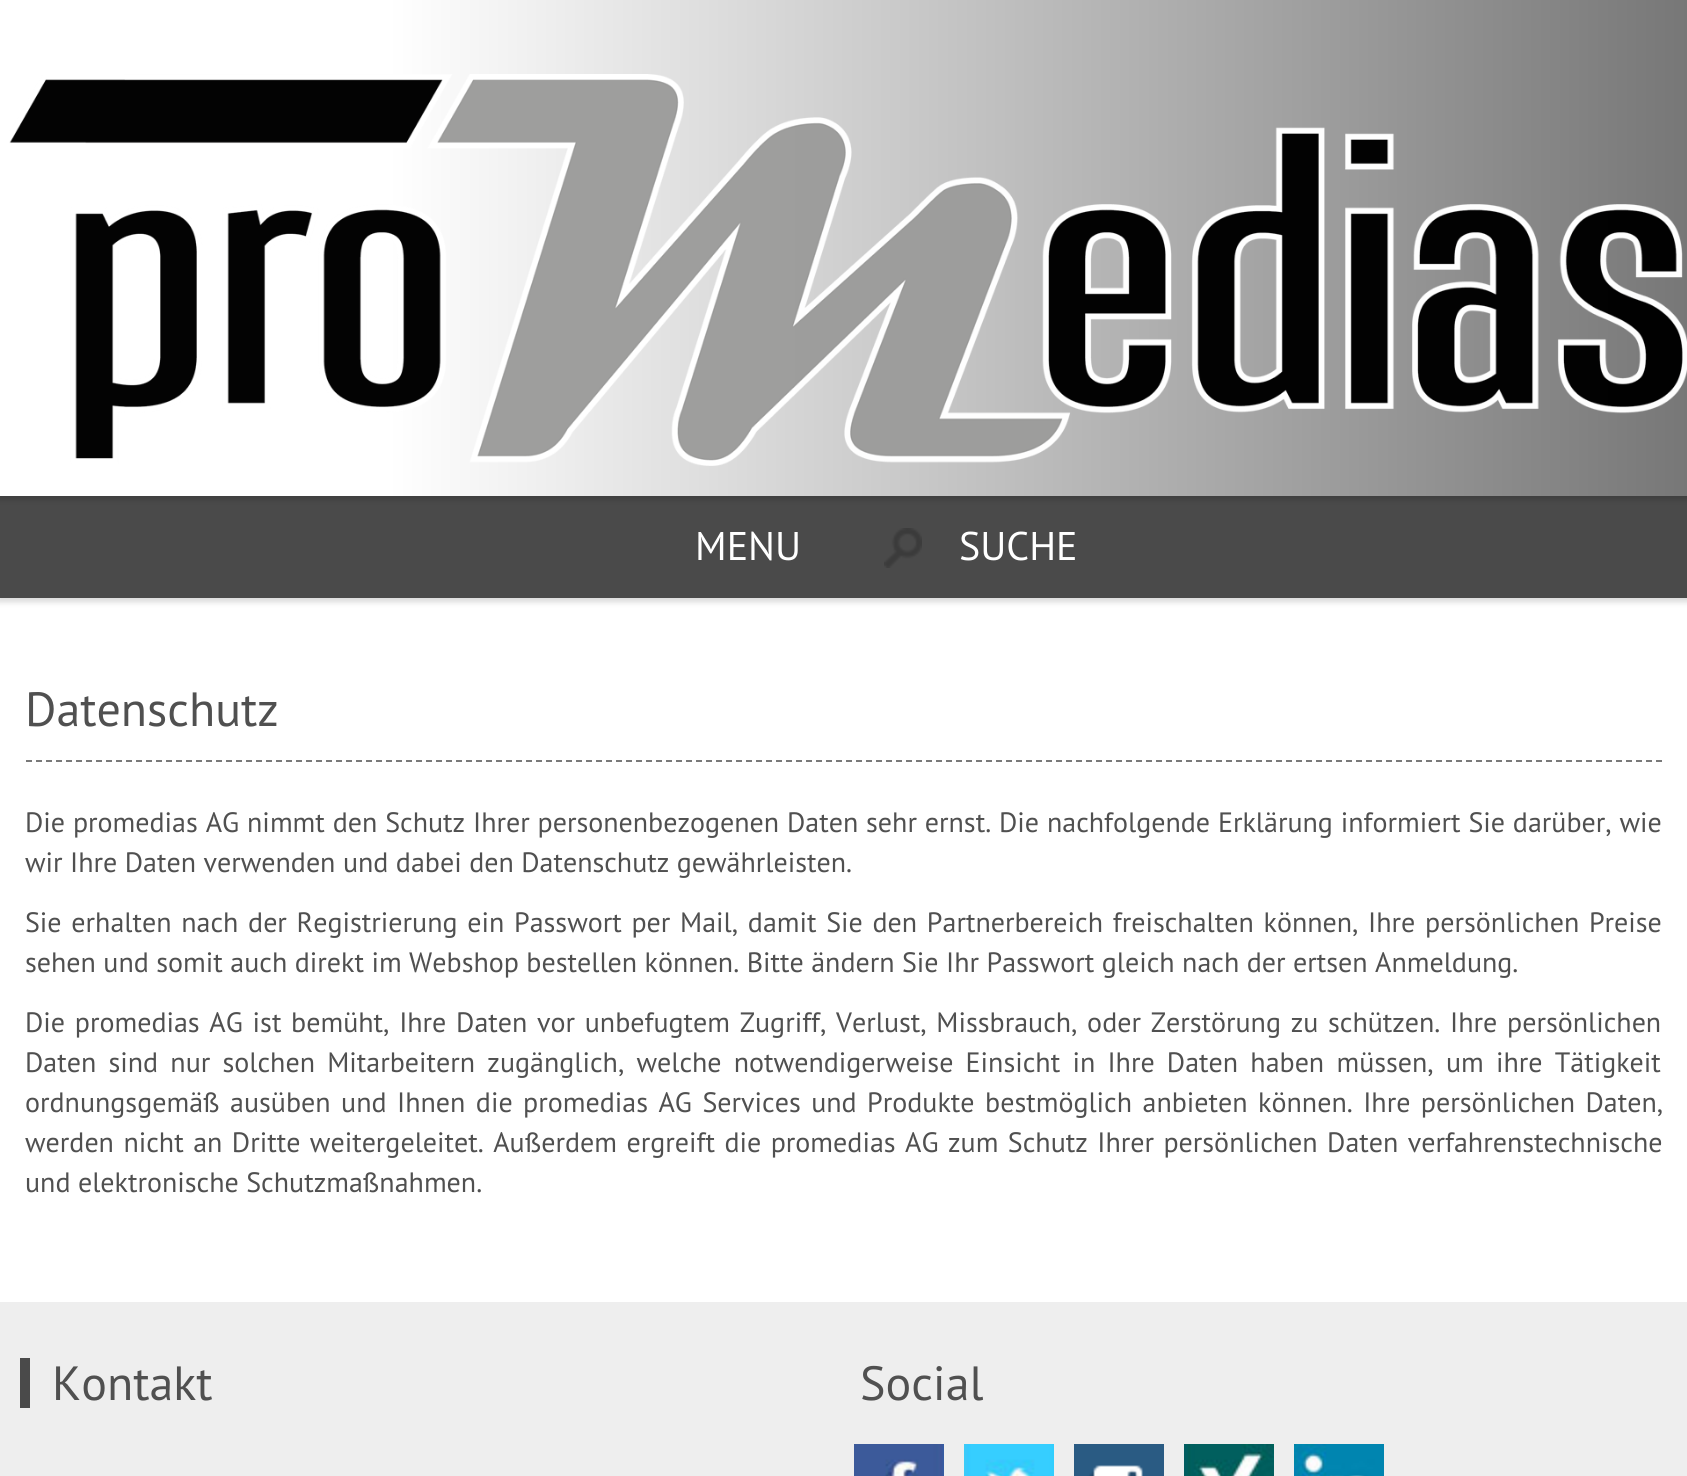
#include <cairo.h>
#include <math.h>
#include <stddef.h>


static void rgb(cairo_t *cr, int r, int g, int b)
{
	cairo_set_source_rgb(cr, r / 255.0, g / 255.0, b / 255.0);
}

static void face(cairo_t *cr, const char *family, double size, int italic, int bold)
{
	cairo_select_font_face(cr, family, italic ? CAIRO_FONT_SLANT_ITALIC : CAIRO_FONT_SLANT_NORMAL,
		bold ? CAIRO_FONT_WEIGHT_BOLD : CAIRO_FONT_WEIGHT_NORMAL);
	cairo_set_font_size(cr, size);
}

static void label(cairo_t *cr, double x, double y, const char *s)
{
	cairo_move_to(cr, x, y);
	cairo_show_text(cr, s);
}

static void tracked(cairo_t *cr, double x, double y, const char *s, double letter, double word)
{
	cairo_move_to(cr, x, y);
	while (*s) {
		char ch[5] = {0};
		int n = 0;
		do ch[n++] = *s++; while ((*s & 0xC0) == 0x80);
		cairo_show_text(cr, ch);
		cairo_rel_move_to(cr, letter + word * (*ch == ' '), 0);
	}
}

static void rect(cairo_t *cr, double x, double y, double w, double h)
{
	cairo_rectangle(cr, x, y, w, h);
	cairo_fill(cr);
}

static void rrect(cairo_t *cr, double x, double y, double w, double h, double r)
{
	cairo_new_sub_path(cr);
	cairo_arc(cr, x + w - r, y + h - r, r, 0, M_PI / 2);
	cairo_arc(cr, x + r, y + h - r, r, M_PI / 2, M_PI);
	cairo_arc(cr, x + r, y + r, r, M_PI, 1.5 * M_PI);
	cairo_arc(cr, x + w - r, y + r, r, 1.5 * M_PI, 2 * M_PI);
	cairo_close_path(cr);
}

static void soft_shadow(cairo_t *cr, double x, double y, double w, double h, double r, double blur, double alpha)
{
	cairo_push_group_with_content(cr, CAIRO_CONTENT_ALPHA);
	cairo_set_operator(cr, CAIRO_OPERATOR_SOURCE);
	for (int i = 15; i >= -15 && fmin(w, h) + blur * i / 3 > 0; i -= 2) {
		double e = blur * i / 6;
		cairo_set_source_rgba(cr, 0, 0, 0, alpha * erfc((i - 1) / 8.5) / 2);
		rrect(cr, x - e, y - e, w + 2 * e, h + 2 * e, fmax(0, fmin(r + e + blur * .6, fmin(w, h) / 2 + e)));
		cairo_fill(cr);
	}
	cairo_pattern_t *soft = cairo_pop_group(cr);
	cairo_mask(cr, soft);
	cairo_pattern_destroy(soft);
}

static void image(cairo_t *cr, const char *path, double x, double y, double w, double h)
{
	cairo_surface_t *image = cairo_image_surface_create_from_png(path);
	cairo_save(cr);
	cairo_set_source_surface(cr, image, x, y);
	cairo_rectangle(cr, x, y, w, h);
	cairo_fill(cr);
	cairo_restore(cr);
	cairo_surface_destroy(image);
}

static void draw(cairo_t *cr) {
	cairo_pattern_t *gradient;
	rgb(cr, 255, 255, 255);
	cairo_paint(cr);
	rgb(cr, 0, 0, 0);
	soft_shadow(cr, -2, 496, 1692, 106, 0, 3, 0.15);
	rgb(cr, 74, 74, 74);
	rect(cr, 0, 496, 1687, 102);
	rgb(cr, 0, 0, 0);
	soft_shadow(cr, -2, 0, 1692, 500, 0, 3, 0.15);
	gradient = cairo_pattern_create_linear(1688, 55, 0, 55);
	cairo_pattern_add_color_stop_rgba(gradient, 0, 0.467, 0.467, 0.467, 1);
	cairo_pattern_add_color_stop_rgba(gradient, 0.77, 1, 1, 1, 1);
	cairo_set_source(cr, gradient);
	cairo_pattern_destroy(gradient);
	rect(cr, 0, 0, 1687, 110);
	gradient = cairo_pattern_create_linear(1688, 303, 0, 303);
	cairo_pattern_add_color_stop_rgba(gradient, 0, 0.467, 0.467, 0.467, 1);
	cairo_pattern_add_color_stop_rgba(gradient, 0.77, 1, 1, 1, 1);
	cairo_set_source(cr, gradient);
	cairo_pattern_destroy(gradient);
	rect(cr, 0, 110, 1687, 386);
	image(cr, "image0.png", 9, 74, 1678, 392);
	face(cr, "PT Sans", 40, 0, 0);
	rgb(cr, 255, 255, 255);
	label(cr, 695, 560, "MENU");
	image(cr, "image1.png", 884, 528, 38, 40);
	label(cr, 959, 560, "SUCHE");
	cairo_new_path(cr);
	cairo_move_to(cr, 26, 761);
	cairo_line_to(cr, 1662, 761);
	rgb(cr, 121, 121, 121);
	cairo_set_dash(cr, (double[]){6, 4}, 2, 0);
	cairo_stroke(cr);
	face(cr, "PT Sans", 48, 0, 0);
	rgb(cr, 80, 80, 80);
	label(cr, 25, 726, "Datenschutz");
	face(cr, "PT Sans", 28, 0, 0);
	tracked(cr, 25, 832, "Die promedias AG nimmt den Schutz Ihrer personenbezogenen Daten sehr ernst. Die nachfolgende Erklärung informiert Sie darüber, wie", 0, 0.4);
	label(cr, 25, 872, "wir Ihre Daten verwenden und dabei den Datenschutz gewährleisten.");
	tracked(cr, 25, 932, "Sie erhalten nach der Registrierung ein Passwort per Mail, damit Sie den Partnerbereich freischalten können, Ihre persönlichen Preise", 0, 2.25);
	label(cr, 25, 972, "sehen und somit auch direkt im Webshop bestellen können. Bitte ändern Sie Ihr Passwort gleich nach der ertsen Anmeldung.");
	tracked(cr, 25, 1032, "Die promedias AG ist bemüht, Ihre Daten vor unbefugtem Zugriff, Verlust, Missbrauch, oder Zerstörung zu schützen. Ihre persönlichen", 0, 2.25);
	tracked(cr, 25, 1072, "Daten sind nur solchen Mitarbeitern zugänglich, welche notwendigerweise Einsicht in Ihre Daten haben müssen, um ihre Tätigkeit", 0, 4.75);
	tracked(cr, 25, 1112, "ordnungsgemäß ausüben und Ihnen die promedias AG Services und Produkte bestmöglich anbieten können. Ihre persönlichen Daten,", 0, 3);
	tracked(cr, 25, 1152, "werden nicht an Dritte weitergeleitet. Außerdem ergreift die promedias AG zum Schutz Ihrer persönlichen Daten verfahrenstechnische", 0, 2);
	label(cr, 25, 1192, "und elektronische Schutzmaßnahmen.");
	rgb(cr, 238, 238, 238);
	rect(cr, 0, 1302, 1687, 174);
	rgb(cr, 74, 74, 74);
	rect(cr, 20, 1358, 10, 50);
	face(cr, "PT Sans", 48, 0, 0);
	rgb(cr, 80, 80, 80);
	label(cr, 52, 1400, "Kontakt");
	label(cr, 860, 1400, "Social");
	image(cr, "image2.png", 854, 1444, 90, 32);
	image(cr, "image3.png", 964, 1444, 90, 32);
	image(cr, "image4.png", 1074, 1444, 90, 32);
	image(cr, "image5.png", 1184, 1444, 90, 32);
	image(cr, "image6.png", 1294, 1444, 90, 32);
}

int main(void) {
	cairo_surface_t *surface = cairo_image_surface_create(CAIRO_FORMAT_RGB24, 1687, 1476);
	cairo_t *cr = cairo_create(surface);
	cairo_font_options_t *options = cairo_font_options_create();
	cairo_font_options_set_hint_metrics(options, CAIRO_HINT_METRICS_OFF);
	cairo_font_options_set_hint_style(options, CAIRO_HINT_STYLE_NONE);
	cairo_set_font_options(cr, options);
	cairo_set_miter_limit(cr, 4);
	draw(cr);
	cairo_surface_write_to_png(surface, "render.png");
	cairo_font_options_destroy(options);
	cairo_destroy(cr);
	cairo_surface_destroy(surface);
	return 0;
}
